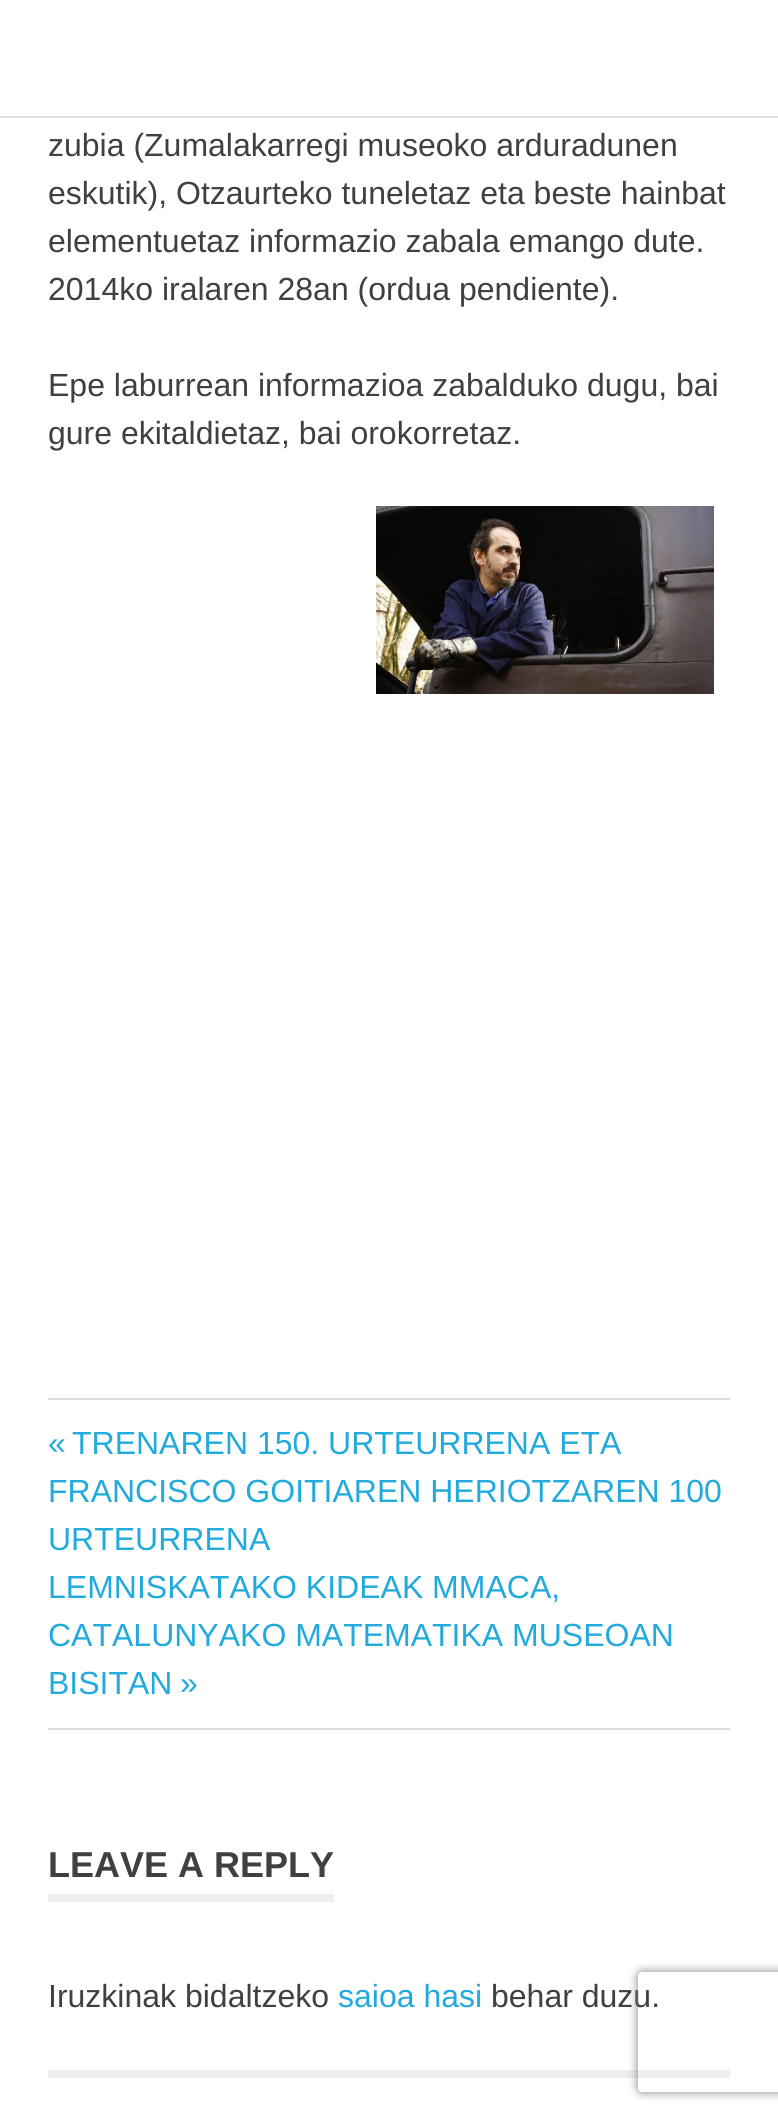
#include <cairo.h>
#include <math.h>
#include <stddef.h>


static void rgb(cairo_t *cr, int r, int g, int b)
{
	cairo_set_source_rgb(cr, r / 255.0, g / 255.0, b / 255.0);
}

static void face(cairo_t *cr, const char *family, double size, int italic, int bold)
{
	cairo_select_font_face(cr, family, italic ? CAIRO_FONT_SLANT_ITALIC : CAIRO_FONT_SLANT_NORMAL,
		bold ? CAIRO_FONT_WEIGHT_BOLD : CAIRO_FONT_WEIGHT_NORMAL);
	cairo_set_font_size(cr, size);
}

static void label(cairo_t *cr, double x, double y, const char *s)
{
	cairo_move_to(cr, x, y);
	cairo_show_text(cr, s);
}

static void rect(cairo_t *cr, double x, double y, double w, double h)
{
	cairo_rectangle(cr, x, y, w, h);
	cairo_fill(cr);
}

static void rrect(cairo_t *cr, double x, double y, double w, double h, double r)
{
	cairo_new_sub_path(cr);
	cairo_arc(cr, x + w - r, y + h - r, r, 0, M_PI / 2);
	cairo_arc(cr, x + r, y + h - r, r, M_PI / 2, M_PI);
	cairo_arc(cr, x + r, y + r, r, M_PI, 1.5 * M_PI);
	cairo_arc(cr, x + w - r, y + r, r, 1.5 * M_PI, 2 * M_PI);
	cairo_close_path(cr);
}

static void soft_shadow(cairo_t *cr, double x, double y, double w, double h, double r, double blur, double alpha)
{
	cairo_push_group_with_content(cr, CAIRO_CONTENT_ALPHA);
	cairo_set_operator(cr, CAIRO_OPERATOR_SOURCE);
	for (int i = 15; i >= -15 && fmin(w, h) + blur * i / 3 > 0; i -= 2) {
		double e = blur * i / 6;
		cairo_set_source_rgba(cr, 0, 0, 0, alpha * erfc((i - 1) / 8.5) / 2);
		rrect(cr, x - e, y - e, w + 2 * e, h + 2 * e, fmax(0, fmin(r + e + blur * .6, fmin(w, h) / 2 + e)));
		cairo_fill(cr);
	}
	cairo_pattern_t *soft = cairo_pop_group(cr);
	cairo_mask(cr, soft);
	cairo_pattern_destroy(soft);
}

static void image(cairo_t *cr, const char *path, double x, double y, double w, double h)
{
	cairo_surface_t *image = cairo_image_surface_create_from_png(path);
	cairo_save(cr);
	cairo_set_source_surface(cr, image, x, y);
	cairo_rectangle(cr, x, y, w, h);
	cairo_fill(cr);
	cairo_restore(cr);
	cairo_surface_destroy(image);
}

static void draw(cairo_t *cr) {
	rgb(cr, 255, 255, 255);
	cairo_paint(cr);
	rgb(cr, 224, 224, 224);
	rect(cr, 0, 116, 778, 2);
	face(cr, "Liberation Sans", 32, 0, 0);
	rgb(cr, 64, 64, 64);
	label(cr, 48, 156, "zubia (Zumalakarregi museoko arduradunen");
	label(cr, 48, 204, "eskutik), Otzaurteko tuneletaz eta beste hainbat");
	label(cr, 48, 252, "elementuetaz informazio zabala emango dute.");
	label(cr, 48, 300, "2014ko iralaren 28an (ordua pendiente).");
	label(cr, 48, 396, "Epe laburrean informazioa zabalduko dugu, bai");
	label(cr, 48, 444, "gure ekitaldietaz, bai orokorretaz.");
	image(cr, "image0.png", 376, 506, 338, 188);
	rgb(cr, 221, 221, 221);
	rect(cr, 48, 1398, 682, 2);
	rect(cr, 48, 1728, 682, 2);
	rgb(cr, 34, 170, 221);
	label(cr, 48, 1454, "«");
	label(cr, 72, 1454, "TRENAREN 150. URTEURRENA ETA");
	label(cr, 48, 1502, "FRANCISCO GOITIAREN HERIOTZAREN 100");
	label(cr, 48, 1550, "URTEURRENA");
	label(cr, 48, 1598, "LEMNISKATAKO KIDEAK MMACA,");
	label(cr, 48, 1646, "CATALUNYAKO MATEMATIKA MUSEOAN");
	label(cr, 48, 1694, "BISITAN");
	label(cr, 180, 1694, "»");
	rgb(cr, 238, 238, 238);
	rect(cr, 48, 1894, 286, 8);
	face(cr, "Liberation Sans", 36, 0, 1);
	rgb(cr, 64, 64, 64);
	label(cr, 48, 1877, "LEAVE A REPLY");
	face(cr, "Liberation Sans", 32, 0, 0);
	label(cr, 48, 2007, "Iruzkinak bidaltzeko");
	rgb(cr, 34, 170, 221);
	label(cr, 338, 2007, "saioa hasi");
	rgb(cr, 64, 64, 64);
	label(cr, 491, 2007, "behar duzu.");
	rgb(cr, 238, 238, 238);
	rect(cr, 48, 2070, 682, 8);
	cairo_save(cr);
	cairo_set_fill_rule(cr, CAIRO_FILL_RULE_EVEN_ODD);
	cairo_new_path(cr);
	cairo_move_to(cr, 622, 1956);
	cairo_line_to(cr, 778, 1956);
	cairo_line_to(cr, 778, 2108);
	cairo_line_to(cr, 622, 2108);
	cairo_close_path(cr);
	cairo_move_to(cr, 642, 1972);
	cairo_line_to(cr, 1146, 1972);
	cairo_curve_to(cr, 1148, 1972, 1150, 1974, 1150, 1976);
	cairo_line_to(cr, 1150, 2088);
	cairo_curve_to(cr, 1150, 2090, 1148, 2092, 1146, 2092);
	cairo_line_to(cr, 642, 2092);
	cairo_curve_to(cr, 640, 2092, 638, 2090, 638, 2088);
	cairo_line_to(cr, 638, 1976);
	cairo_curve_to(cr, 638, 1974, 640, 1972, 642, 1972);
	cairo_close_path(cr);
	cairo_clip(cr);
	rgb(cr, 128, 128, 128);
	soft_shadow(cr, 638, 1972, 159, 120, 4, 5, 1);
	cairo_restore(cr);
}

int main(void) {
	cairo_surface_t *surface = cairo_image_surface_create(CAIRO_FORMAT_RGB24, 778, 2120);
	cairo_t *cr = cairo_create(surface);
	cairo_font_options_t *options = cairo_font_options_create();
	cairo_font_options_set_hint_metrics(options, CAIRO_HINT_METRICS_OFF);
	cairo_font_options_set_hint_style(options, CAIRO_HINT_STYLE_NONE);
	cairo_set_font_options(cr, options);
	cairo_set_miter_limit(cr, 4);
	draw(cr);
	cairo_surface_write_to_png(surface, "render.png");
	cairo_font_options_destroy(options);
	cairo_destroy(cr);
	cairo_surface_destroy(surface);
	return 0;
}
